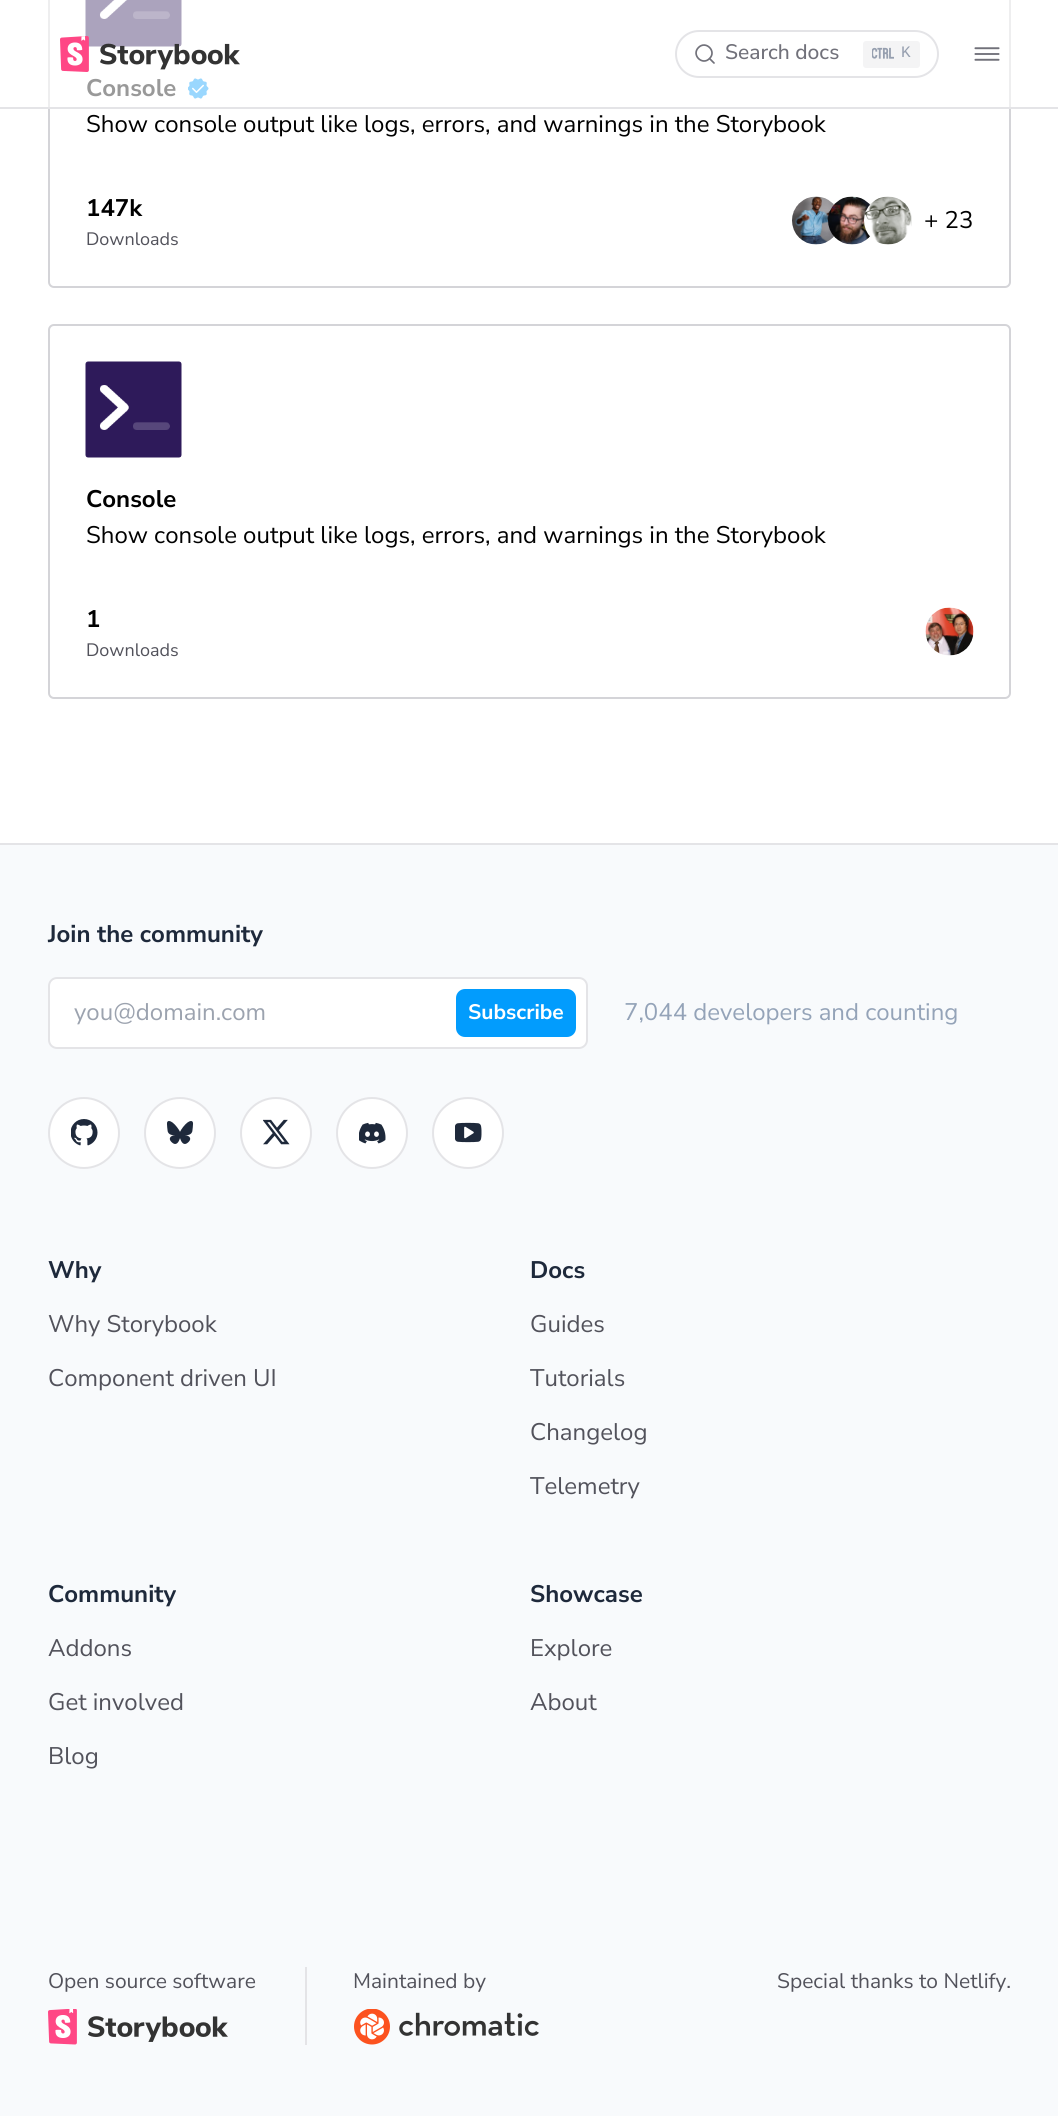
#include <cairo.h>
#include <math.h>
#include <stddef.h>


static void rgb(cairo_t *cr, int r, int g, int b)
{
	cairo_set_source_rgb(cr, r / 255.0, g / 255.0, b / 255.0);
}

static void face(cairo_t *cr, const char *family, double size, int italic, int bold)
{
	cairo_select_font_face(cr, family, italic ? CAIRO_FONT_SLANT_ITALIC : CAIRO_FONT_SLANT_NORMAL,
		bold ? CAIRO_FONT_WEIGHT_BOLD : CAIRO_FONT_WEIGHT_NORMAL);
	cairo_set_font_size(cr, size);
}

static void label(cairo_t *cr, double x, double y, const char *s)
{
	cairo_move_to(cr, x, y);
	cairo_show_text(cr, s);
}

static void rect(cairo_t *cr, double x, double y, double w, double h)
{
	cairo_rectangle(cr, x, y, w, h);
	cairo_fill(cr);
}

static void rrect(cairo_t *cr, double x, double y, double w, double h, double r)
{
	cairo_new_sub_path(cr);
	cairo_arc(cr, x + w - r, y + h - r, r, 0, M_PI / 2);
	cairo_arc(cr, x + r, y + h - r, r, M_PI / 2, M_PI);
	cairo_arc(cr, x + r, y + r, r, M_PI, 1.5 * M_PI);
	cairo_arc(cr, x + w - r, y + r, r, 1.5 * M_PI, 2 * M_PI);
	cairo_close_path(cr);
}

static void image(cairo_t *cr, const char *path, double x, double y, double w, double h)
{
	cairo_surface_t *image = cairo_image_surface_create_from_png(path);
	cairo_save(cr);
	cairo_set_source_surface(cr, image, x, y);
	cairo_rectangle(cr, x, y, w, h);
	cairo_fill(cr);
	cairo_restore(cr);
	cairo_surface_destroy(image);
}

static void draw(cairo_t *cr) {
	rgb(cr, 255, 255, 255);
	cairo_paint(cr);
	rrect(cr, 49, -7, 961, 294, 5);
	rgb(cr, 212, 212, 216);
	cairo_stroke(cr);
	image(cr, "image3.png", 85, 0, 97, 47);
	face(cr, "Nunito Sans", 24, 0, 1);
	rgb(cr, 0, 0, 0);
	label(cr, 86, 96, "Console");
	image(cr, "image4.png", 188, 78, 21, 21);
	cairo_set_source_rgba(cr, 1, 1, 1, 0.6);
	rect(cr, 48, 0, 963, 107);
	rgb(cr, 228, 228, 231);
	rect(cr, 0, 107, 1058, 2);
	image(cr, "image0.png", 60, 36, 180, 36);
	rrect(cr, 676, 31, 262, 46, 23);
	cairo_stroke(cr);
	cairo_new_path(cr);
	cairo_move_to(cr, 709.5, 58.5);
	cairo_line_to(cr, 714, 63);
	cairo_line_to(cr, 709.5, 58.5);
	cairo_curve_to(cr, 702.5, 66, 691, 55, 698.5, 47.5);
	cairo_curve_to(cr, 706, 40, 717, 51.5, 709.5, 58.5);
	cairo_close_path(cr);
	rgb(cr, 113, 113, 122);
	cairo_set_line_width(cr, 1.7);
	cairo_set_line_cap(cr, CAIRO_LINE_CAP_ROUND);
	cairo_set_line_join(cr, CAIRO_LINE_JOIN_ROUND);
	cairo_stroke(cr);
	face(cr, "Nunito Sans Medium", 21, 0, 0);
	label(cr, 725, 59, "Search docs");
	rgb(cr, 244, 244, 245);
	rrect(cr, 863, 41, 57, 27, 3);
	cairo_fill(cr);
	image(cr, "image1.png", 872, 47, 22, 12);
	face(cr, "Liberation Mono", 16, 0, 0);
	rgb(cr, 150, 159, 175);
	label(cr, 901, 57, "K");
	image(cr, "image2.png", 974, 47, 26, 14);
	face(cr, "Nunito Sans", 24, 0, 0);
	rgb(cr, 0, 0, 0);
	label(cr, 86, 132, "Show console output like logs, errors, and warnings in the Storybook");
	face(cr, "Nunito Sans", 24, 0, 1);
	label(cr, 86, 216, "147k");
	face(cr, "Nunito Sans", 18, 0, 0);
	rgb(cr, 82, 82, 91);
	label(cr, 86, 245, "Downloads");
	image(cr, "image5.png", 792, 196, 43, 49);
	image(cr, "image6.png", 828, 196, 43, 49);
	image(cr, "image7.png", 864, 196, 48, 49);
	face(cr, "Nunito Sans", 24, 0, 0);
	rgb(cr, 0, 0, 0);
	label(cr, 924, 228, "+ 23");
	rrect(cr, 49, 325, 961, 373, 5);
	rgb(cr, 212, 212, 216);
	cairo_set_line_width(cr, 2);
	cairo_set_line_cap(cr, CAIRO_LINE_CAP_BUTT);
	cairo_set_line_join(cr, CAIRO_LINE_JOIN_MITER);
	cairo_stroke(cr);
	image(cr, "image8.png", 85, 361, 97, 97);
	face(cr, "Nunito Sans", 24, 0, 1);
	rgb(cr, 0, 0, 0);
	label(cr, 86, 507, "Console");
	face(cr, "Nunito Sans", 24, 0, 0);
	label(cr, 86, 543, "Show console output like logs, errors, and warnings in the Storybook");
	face(cr, "Nunito Sans", 24, 0, 1);
	label(cr, 86, 627, "1");
	face(cr, "Nunito Sans", 18, 0, 0);
	rgb(cr, 82, 82, 91);
	label(cr, 86, 656, "Downloads");
	image(cr, "image9.png", 925, 607, 49, 49);
	rgb(cr, 248, 250, 252);
	rect(cr, 0, 845, 1058, 1271);
	rgb(cr, 228, 228, 231);
	rect(cr, 0, 843, 1058, 2);
	face(cr, "Nunito Sans", 24, 0, 1);
	rgb(cr, 30, 41, 59);
	label(cr, 48, 942, "Join the community");
	rgb(cr, 255, 255, 255);
	rrect(cr, 49, 978, 538, 70, 8);
	cairo_fill_preserve(cr);
	rgb(cr, 228, 228, 231);
	cairo_stroke(cr);
	face(cr, "Nunito Sans", 24, 0, 0);
	rgb(cr, 156, 163, 175);
	label(cr, 74, 1020, "you@domain.com");
	rgb(cr, 2, 156, 253);
	rrect(cr, 456, 989, 120, 48, 9);
	cairo_fill(cr);
	face(cr, "Nunito Sans", 21, 0, 1);
	rgb(cr, 255, 255, 255);
	label(cr, 468, 1019, "Subscribe");
	face(cr, "Nunito Sans", 24, 0, 0);
	rgb(cr, 148, 163, 184);
	label(cr, 624, 1020, "7,044 developers and counting");
	rgb(cr, 255, 255, 255);
	cairo_new_path(cr);
	cairo_arc(cr, 84, 1133, 35, 0, 2 * M_PI);
	cairo_fill_preserve(cr);
	rgb(cr, 228, 228, 231);
	cairo_stroke(cr);
	image(cr, "image10.png", 71, 1119, 27, 27);
	rgb(cr, 255, 255, 255);
	cairo_arc(cr, 180, 1133, 35, 0, 2 * M_PI);
	cairo_fill_preserve(cr);
	rgb(cr, 228, 228, 231);
	cairo_stroke(cr);
	image(cr, "image11.png", 167, 1121, 27, 23);
	rgb(cr, 255, 255, 255);
	cairo_arc(cr, 276, 1133, 35, 0, 2 * M_PI);
	cairo_fill_preserve(cr);
	rgb(cr, 228, 228, 231);
	cairo_stroke(cr);
	image(cr, "image12.png", 263, 1119, 27, 26);
	rgb(cr, 255, 255, 255);
	cairo_arc(cr, 372, 1133, 35, 0, 2 * M_PI);
	cairo_fill_preserve(cr);
	rgb(cr, 228, 228, 231);
	cairo_stroke(cr);
	image(cr, "image13.png", 359, 1122, 27, 22);
	rgb(cr, 255, 255, 255);
	cairo_arc(cr, 468, 1133, 35, 0, 2 * M_PI);
	cairo_fill_preserve(cr);
	rgb(cr, 228, 228, 231);
	cairo_stroke(cr);
	image(cr, "image14.png", 455, 1122, 27, 21);
	face(cr, "Nunito Sans", 24, 0, 1);
	rgb(cr, 30, 41, 59);
	label(cr, 48, 1278, "Why");
	face(cr, "Nunito Sans", 24, 0, 0);
	rgb(cr, 82, 82, 91);
	label(cr, 48, 1332, "Why Storybook");
	label(cr, 48, 1386, "Component driven UI");
	face(cr, "Nunito Sans", 24, 0, 1);
	rgb(cr, 30, 41, 59);
	label(cr, 530, 1278, "Docs");
	face(cr, "Nunito Sans", 24, 0, 0);
	rgb(cr, 82, 82, 91);
	label(cr, 530, 1332, "Guides");
	label(cr, 530, 1386, "Tutorials");
	label(cr, 530, 1440, "Changelog");
	label(cr, 530, 1494, "Telemetry");
	face(cr, "Nunito Sans", 24, 0, 1);
	rgb(cr, 30, 41, 59);
	label(cr, 48, 1602, "Community");
	face(cr, "Nunito Sans", 24, 0, 0);
	rgb(cr, 82, 82, 91);
	label(cr, 48, 1656, "Addons");
	label(cr, 48, 1710, "Get involved");
	label(cr, 48, 1764, "Blog");
	face(cr, "Nunito Sans", 24, 0, 1);
	rgb(cr, 30, 41, 59);
	label(cr, 530, 1602, "Showcase");
	face(cr, "Nunito Sans", 24, 0, 0);
	rgb(cr, 82, 82, 91);
	label(cr, 530, 1656, "Explore");
	label(cr, 530, 1710, "About");
	rgb(cr, 228, 228, 231);
	rect(cr, 305, 1967, 2, 78);
	face(cr, "Nunito Sans", 21, 0, 0);
	rgb(cr, 82, 82, 91);
	label(cr, 48, 1988, "Open source software");
	image(cr, "image15.png", 48, 2009, 180, 36);
	label(cr, 353, 1988, "Maintained by");
	image(cr, "image16.png", 354, 2009, 185, 36);
	label(cr, 777, 1988, "Special thanks to Netlify.");
}

int main(void) {
	cairo_surface_t *surface = cairo_image_surface_create(CAIRO_FORMAT_RGB24, 1058, 2116);
	cairo_t *cr = cairo_create(surface);
	cairo_font_options_t *options = cairo_font_options_create();
	cairo_font_options_set_hint_metrics(options, CAIRO_HINT_METRICS_OFF);
	cairo_font_options_set_hint_style(options, CAIRO_HINT_STYLE_NONE);
	cairo_set_font_options(cr, options);
	cairo_set_miter_limit(cr, 4);
	draw(cr);
	cairo_surface_write_to_png(surface, "render.png");
	cairo_font_options_destroy(options);
	cairo_destroy(cr);
	cairo_surface_destroy(surface);
	return 0;
}
